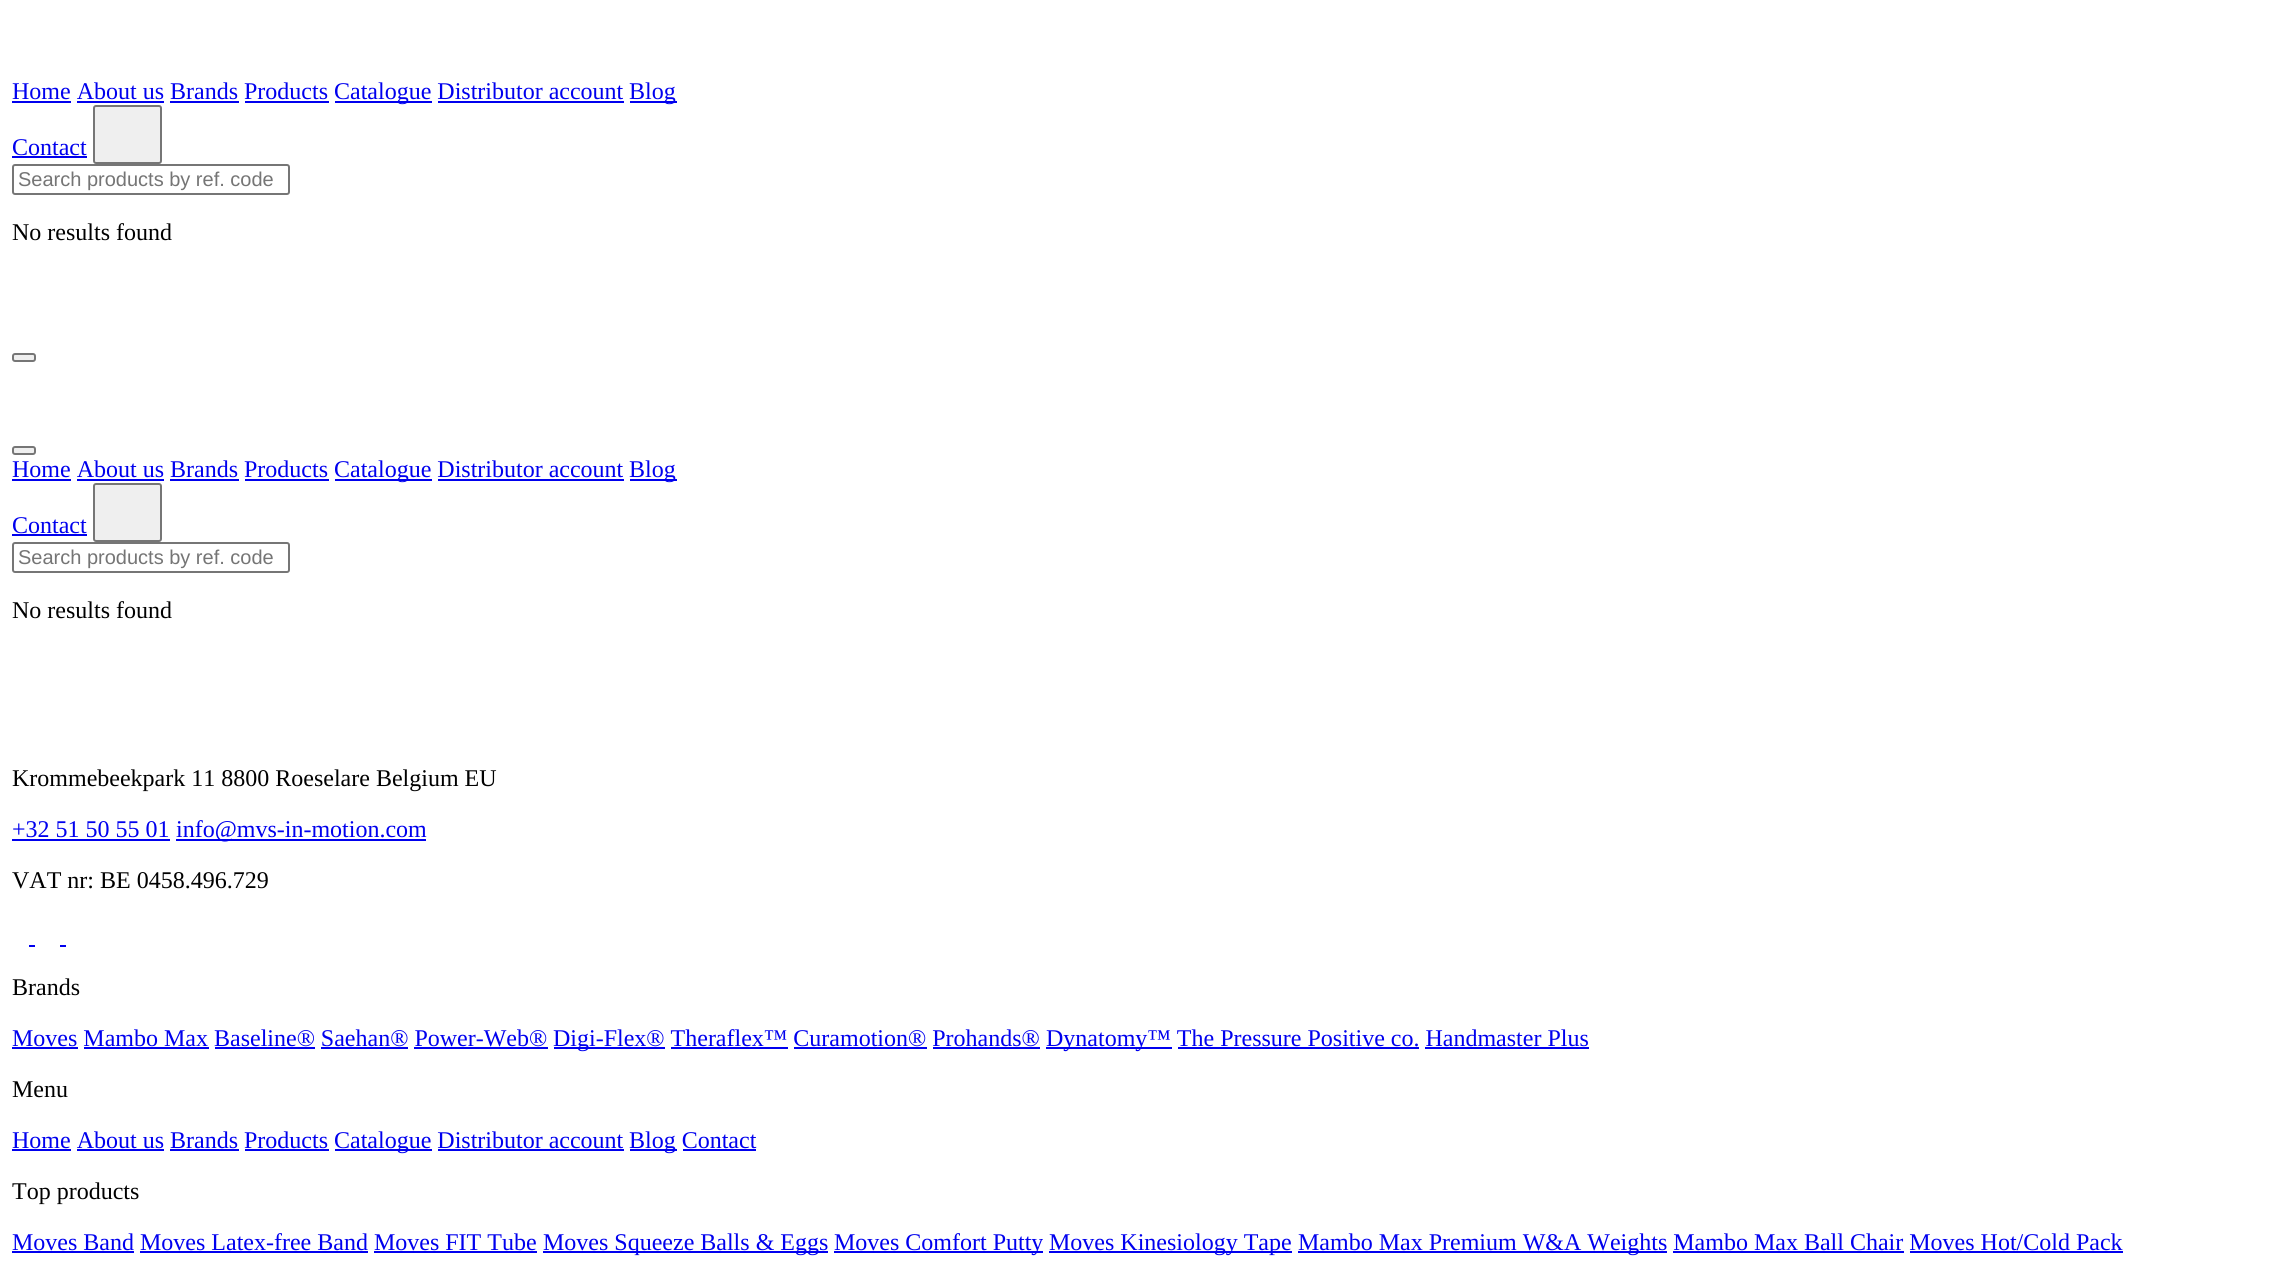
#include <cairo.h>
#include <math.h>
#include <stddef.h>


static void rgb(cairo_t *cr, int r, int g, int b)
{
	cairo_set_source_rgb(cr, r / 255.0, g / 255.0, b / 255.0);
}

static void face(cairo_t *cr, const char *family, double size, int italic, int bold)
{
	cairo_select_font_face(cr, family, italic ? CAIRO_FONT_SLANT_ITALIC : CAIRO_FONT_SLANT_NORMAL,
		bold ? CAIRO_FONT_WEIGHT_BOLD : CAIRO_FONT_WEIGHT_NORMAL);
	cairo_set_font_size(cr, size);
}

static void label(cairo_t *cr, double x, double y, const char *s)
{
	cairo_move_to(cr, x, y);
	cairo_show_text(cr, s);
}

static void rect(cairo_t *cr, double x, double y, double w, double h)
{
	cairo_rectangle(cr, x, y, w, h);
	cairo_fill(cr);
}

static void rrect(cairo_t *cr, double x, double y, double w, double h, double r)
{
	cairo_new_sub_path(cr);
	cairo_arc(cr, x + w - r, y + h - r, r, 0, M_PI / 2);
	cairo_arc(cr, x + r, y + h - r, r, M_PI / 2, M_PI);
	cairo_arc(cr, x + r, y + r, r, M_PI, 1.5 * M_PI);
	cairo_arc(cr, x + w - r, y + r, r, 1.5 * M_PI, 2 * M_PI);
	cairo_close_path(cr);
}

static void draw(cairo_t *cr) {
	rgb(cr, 255, 255, 255);
	cairo_paint(cr);
	face(cr, "Liberation Serif", 24, 0, 0);
	rgb(cr, 0, 0, 238);
	label(cr, 12, 99, "Home About us Brands Products");
	rect(cr, 12, 101, 59, 2);
	rect(cr, 335, 101, 97, 2);
	label(cr, 334, 99, "Catalogue Distributor account");
	rect(cr, 630, 101, 47, 2);
	label(cr, 629, 99, "Blog");
	rect(cr, 77, 101, 87, 2);
	rect(cr, 170, 101, 69, 2);
	rect(cr, 245, 101, 84, 2);
	rect(cr, 438, 101, 186, 2);
	label(cr, 12, 155, "Contact");
	rect(cr, 12, 156, 75, 2);
	rgb(cr, 239, 239, 239);
	rrect(cr, 94, 106, 67, 57, 2);
	cairo_fill_preserve(cr);
	rgb(cr, 118, 118, 118);
	cairo_stroke(cr);
	rrect(cr, 13, 165, 276, 29, 2);
	cairo_stroke(cr);
	face(cr, "Liberation Sans", 20, 0, 0);
	rgb(cr, 117, 117, 117);
	label(cr, 18, 186, "Search products by ref. code");
	face(cr, "Liberation Serif", 24, 0, 0);
	rgb(cr, 0, 0, 0);
	label(cr, 12, 240, "No results found");
	rgb(cr, 239, 239, 239);
	rrect(cr, 13, 354, 22, 7, 2);
	cairo_fill_preserve(cr);
	rgb(cr, 118, 118, 118);
	cairo_stroke(cr);
	rgb(cr, 239, 239, 239);
	rrect(cr, 13, 447, 22, 7, 2);
	cairo_fill_preserve(cr);
	rgb(cr, 118, 118, 118);
	cairo_stroke(cr);
	rgb(cr, 0, 0, 238);
	label(cr, 12, 477, "Home About us Brands Products");
	rect(cr, 12, 479, 59, 2);
	rect(cr, 335, 479, 97, 2);
	label(cr, 334, 477, "Catalogue Distributor account");
	rect(cr, 630, 479, 47, 2);
	label(cr, 629, 477, "Blog");
	rect(cr, 77, 479, 87, 2);
	rect(cr, 170, 479, 69, 2);
	rect(cr, 245, 479, 84, 2);
	rect(cr, 438, 479, 186, 2);
	label(cr, 12, 533, "Contact");
	rect(cr, 12, 534, 75, 2);
	rgb(cr, 239, 239, 239);
	rrect(cr, 94, 484, 67, 57, 2);
	cairo_fill_preserve(cr);
	rgb(cr, 118, 118, 118);
	cairo_stroke(cr);
	rrect(cr, 13, 543, 276, 29, 2);
	cairo_stroke(cr);
	face(cr, "Liberation Sans", 20, 0, 0);
	rgb(cr, 117, 117, 117);
	label(cr, 18, 564, "Search products by ref. code");
	face(cr, "Liberation Serif", 24, 0, 0);
	rgb(cr, 0, 0, 0);
	label(cr, 12, 618, "No results found");
	label(cr, 12, 786, "Krommebeekpark 11 8800 Roeselare Belgium EU");
	rgb(cr, 0, 0, 238);
	label(cr, 12, 837, "+32 51 50 55 01");
	rect(cr, 12, 839, 158, 2);
	rect(cr, 176, 839, 250, 2);
	label(cr, 176, 837, "info@mvs-in-motion.com");
	rgb(cr, 0, 0, 0);
	label(cr, 12, 888, "VAT nr: BE 0458.496.729");
	rgb(cr, 0, 0, 238);
	rect(cr, 29, 945, 6, 2);
	rect(cr, 60, 945, 6, 2);
	rgb(cr, 0, 0, 0);
	label(cr, 12, 995, "Brands");
	rgb(cr, 0, 0, 238);
	label(cr, 12, 1046, "Moves Mambo Max Baseline® Saehan® Power-Web®");
	rect(cr, 12, 1047, 66, 2);
	rect(cr, 554, 1047, 111, 2);
	label(cr, 553, 1046, "Digi-Flex® Theraflex™ Curamotion® Prohands®");
	rect(cr, 1046, 1047, 126, 2);
	label(cr, 1046, 1046, "Dynatomy™ The Pressure Positive co. Handmaster Plus");
	rect(cr, 84, 1047, 125, 2);
	rect(cr, 215, 1047, 100, 2);
	rect(cr, 321, 1047, 87, 2);
	rect(cr, 414, 1047, 134, 2);
	rect(cr, 671, 1047, 117, 2);
	rect(cr, 794, 1047, 133, 2);
	rect(cr, 933, 1047, 107, 2);
	rect(cr, 1178, 1047, 241, 2);
	rect(cr, 1425, 1047, 164, 2);
	rgb(cr, 0, 0, 0);
	label(cr, 12, 1097, "Menu");
	rgb(cr, 0, 0, 238);
	label(cr, 12, 1148, "Home About us Brands Products");
	rect(cr, 12, 1149, 59, 2);
	rect(cr, 335, 1149, 97, 2);
	label(cr, 334, 1148, "Catalogue Distributor account");
	rect(cr, 630, 1149, 47, 2);
	label(cr, 629, 1148, "Blog Contact");
	rect(cr, 77, 1149, 87, 2);
	rect(cr, 170, 1149, 69, 2);
	rect(cr, 245, 1149, 84, 2);
	rect(cr, 438, 1149, 186, 2);
	rect(cr, 683, 1149, 73, 2);
	rgb(cr, 0, 0, 0);
	label(cr, 12, 1199, "Top products");
	rgb(cr, 0, 0, 238);
	label(cr, 12, 1250, "Moves Band Moves Latex-free Band Moves FIT Tube");
	rect(cr, 12, 1251, 122, 2);
	rect(cr, 543, 1251, 285, 2);
	label(cr, 543, 1250, "Moves Squeeze Balls & Eggs");
	rect(cr, 834, 1251, 209, 2);
	label(cr, 834, 1250, "Moves Comfort Putty");
	rect(cr, 1049, 1251, 243, 2);
	label(cr, 1049, 1250, "Moves Kinesiology Tape");
	rect(cr, 1298, 1251, 369, 2);
	label(cr, 1298, 1250, "Mambo Max Premium W&A Weights Mambo Max Ball Chair Moves Hot/Cold Pack");
	rect(cr, 140, 1251, 228, 2);
	rect(cr, 374, 1251, 163, 2);
	rect(cr, 1673, 1251, 231, 2);
	rect(cr, 1910, 1251, 213, 2);
}

int main(void) {
	cairo_surface_t *surface = cairo_image_surface_create(CAIRO_FORMAT_RGB24, 2287, 1280);
	cairo_t *cr = cairo_create(surface);
	cairo_font_options_t *options = cairo_font_options_create();
	cairo_font_options_set_hint_metrics(options, CAIRO_HINT_METRICS_OFF);
	cairo_font_options_set_hint_style(options, CAIRO_HINT_STYLE_NONE);
	cairo_set_font_options(cr, options);
	cairo_set_miter_limit(cr, 4);
	draw(cr);
	cairo_surface_write_to_png(surface, "render.png");
	cairo_font_options_destroy(options);
	cairo_destroy(cr);
	cairo_surface_destroy(surface);
	return 0;
}
